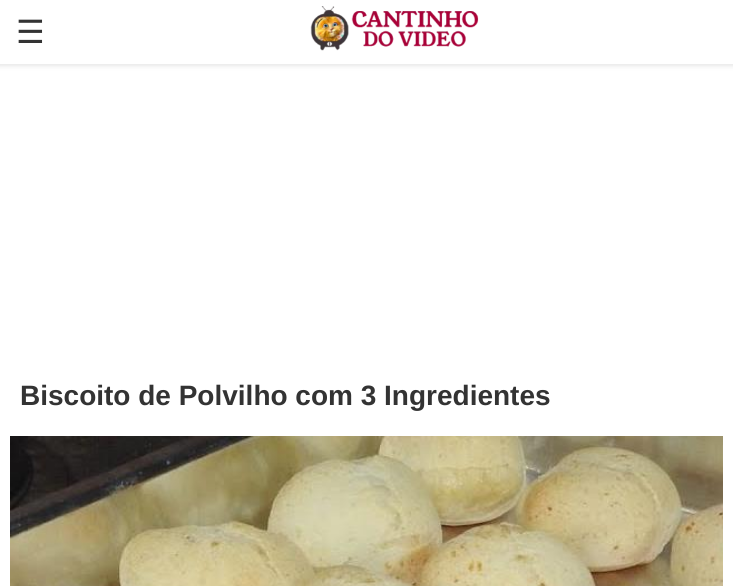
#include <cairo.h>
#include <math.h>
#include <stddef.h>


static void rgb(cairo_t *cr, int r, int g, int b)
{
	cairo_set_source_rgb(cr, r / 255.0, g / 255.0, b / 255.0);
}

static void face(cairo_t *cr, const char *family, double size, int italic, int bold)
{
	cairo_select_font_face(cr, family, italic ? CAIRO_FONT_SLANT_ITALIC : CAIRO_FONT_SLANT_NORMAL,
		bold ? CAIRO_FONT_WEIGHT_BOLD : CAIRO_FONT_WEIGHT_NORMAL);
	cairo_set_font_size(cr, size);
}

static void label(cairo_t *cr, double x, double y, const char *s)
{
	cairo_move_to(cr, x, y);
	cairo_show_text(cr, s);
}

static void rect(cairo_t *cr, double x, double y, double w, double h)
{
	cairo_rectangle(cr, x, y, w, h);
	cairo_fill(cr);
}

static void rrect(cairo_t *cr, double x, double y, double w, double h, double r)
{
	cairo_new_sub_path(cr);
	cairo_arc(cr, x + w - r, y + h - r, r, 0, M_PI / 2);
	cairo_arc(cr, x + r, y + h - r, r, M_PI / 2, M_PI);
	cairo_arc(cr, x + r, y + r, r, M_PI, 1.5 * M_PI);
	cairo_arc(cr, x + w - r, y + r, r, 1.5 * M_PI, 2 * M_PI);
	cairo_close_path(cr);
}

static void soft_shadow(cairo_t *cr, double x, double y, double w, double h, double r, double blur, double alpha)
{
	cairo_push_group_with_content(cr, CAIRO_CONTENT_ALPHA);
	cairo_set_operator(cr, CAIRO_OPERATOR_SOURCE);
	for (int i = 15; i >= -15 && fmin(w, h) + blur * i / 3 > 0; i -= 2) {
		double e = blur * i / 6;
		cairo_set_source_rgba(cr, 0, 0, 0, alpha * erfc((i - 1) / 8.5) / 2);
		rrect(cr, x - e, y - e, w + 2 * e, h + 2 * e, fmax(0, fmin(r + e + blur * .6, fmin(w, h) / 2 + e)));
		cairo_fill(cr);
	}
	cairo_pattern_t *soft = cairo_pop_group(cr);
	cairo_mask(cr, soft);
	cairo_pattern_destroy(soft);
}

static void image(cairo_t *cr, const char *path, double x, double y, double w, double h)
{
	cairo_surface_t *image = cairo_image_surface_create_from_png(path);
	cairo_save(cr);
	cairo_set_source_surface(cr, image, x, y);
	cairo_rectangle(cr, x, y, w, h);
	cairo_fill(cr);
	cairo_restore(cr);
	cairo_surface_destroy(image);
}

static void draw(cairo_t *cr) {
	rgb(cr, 255, 255, 255);
	cairo_paint(cr);
	rgb(cr, 0, 0, 0);
	soft_shadow(cr, -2, -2, 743, 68, 0, 2.5, 0.1);
	rgb(cr, 255, 255, 255);
	rect(cr, 0, 0, 733, 64);
	face(cr, "DejaVu Sans", 32, 0, 0);
	rgb(cr, 51, 51, 51);
	label(cr, 16, 43, "☰");
	image(cr, "image0.png", 310, 6, 169, 45);
	face(cr, "Liberation Sans", 28, 0, 1);
	label(cr, 20, 405, "Biscoito de Polvilho com 3 Ingredientes");
	image(cr, "image1.png", 10, 436, 713, 150);
}

int main(void) {
	cairo_surface_t *surface = cairo_image_surface_create(CAIRO_FORMAT_RGB24, 733, 586);
	cairo_t *cr = cairo_create(surface);
	cairo_font_options_t *options = cairo_font_options_create();
	cairo_font_options_set_hint_metrics(options, CAIRO_HINT_METRICS_OFF);
	cairo_font_options_set_hint_style(options, CAIRO_HINT_STYLE_NONE);
	cairo_set_font_options(cr, options);
	cairo_set_miter_limit(cr, 4);
	draw(cr);
	cairo_surface_write_to_png(surface, "render.png");
	cairo_font_options_destroy(options);
	cairo_destroy(cr);
	cairo_surface_destroy(surface);
	return 0;
}
